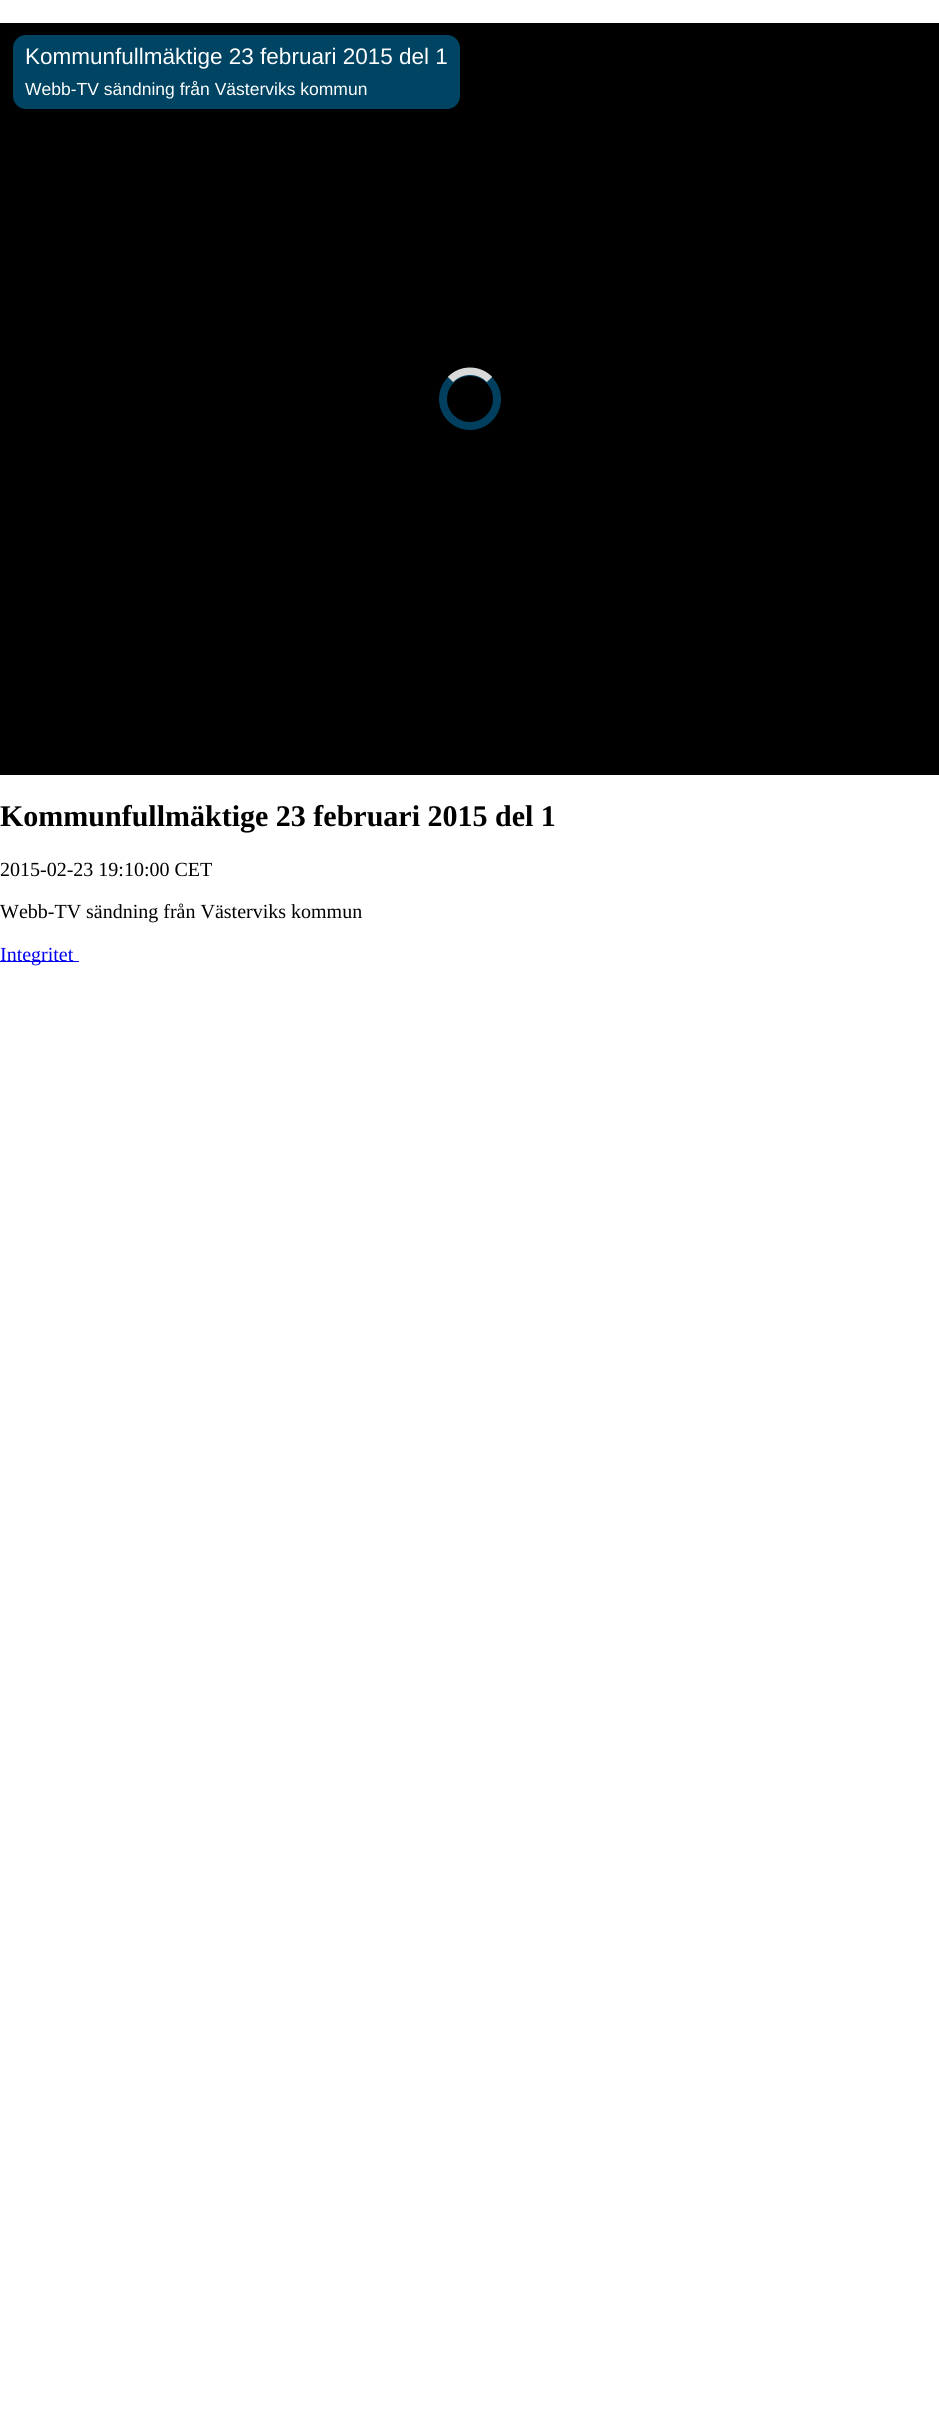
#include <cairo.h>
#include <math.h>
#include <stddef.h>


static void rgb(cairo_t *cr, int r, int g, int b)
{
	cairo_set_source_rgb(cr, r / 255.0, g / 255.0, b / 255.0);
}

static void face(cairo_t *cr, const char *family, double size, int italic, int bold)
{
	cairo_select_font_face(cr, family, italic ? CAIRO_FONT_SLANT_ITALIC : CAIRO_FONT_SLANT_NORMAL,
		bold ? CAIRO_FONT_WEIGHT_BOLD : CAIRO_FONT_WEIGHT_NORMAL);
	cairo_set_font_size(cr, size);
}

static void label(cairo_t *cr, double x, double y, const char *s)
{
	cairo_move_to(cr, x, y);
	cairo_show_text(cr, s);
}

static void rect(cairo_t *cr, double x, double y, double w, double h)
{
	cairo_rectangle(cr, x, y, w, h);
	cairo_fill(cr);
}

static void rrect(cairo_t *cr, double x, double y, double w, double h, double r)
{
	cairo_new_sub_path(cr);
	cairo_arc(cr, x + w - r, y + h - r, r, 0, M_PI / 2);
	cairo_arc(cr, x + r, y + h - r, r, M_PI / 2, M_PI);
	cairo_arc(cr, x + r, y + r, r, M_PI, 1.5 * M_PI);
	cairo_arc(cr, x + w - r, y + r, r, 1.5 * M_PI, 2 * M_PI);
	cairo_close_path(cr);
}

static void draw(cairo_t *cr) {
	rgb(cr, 255, 255, 255);
	cairo_paint(cr);
	rgb(cr, 0, 0, 0);
	rect(cr, 0, 23, 939, 752);
	rgb(cr, 0, 68, 99);
	rrect(cr, 13, 35, 447, 74, 13);
	cairo_fill(cr);
	face(cr, "Liberation Sans", 22.5, 0, 0);
	rgb(cr, 255, 255, 255);
	label(cr, 25, 64, "Kommunfullmäktige 23 februari 2015 del 1");
	face(cr, "Liberation Sans", 17.5, 0, 0);
	label(cr, 25, 95, "Webb-TV sändning från Västerviks kommun");
	cairo_new_path(cr);
	cairo_arc(cr, 470, 399, 27, 0, 2 * M_PI);
	rgb(cr, 0, 64, 94);
	cairo_set_line_width(cr, 8);
	cairo_stroke(cr);
	cairo_new_path(cr);
	cairo_move_to(cr, 450.5, 379.5);
	cairo_curve_to(cr, 461, 368.5, 479, 368.5, 489.5, 379.5);
	cairo_move_to(cr, 450.5, 379.5);
	cairo_curve_to(cr, 461, 368.5, 479, 368.5, 489.5, 379.5);
	rgb(cr, 217, 217, 217);
	cairo_set_line_width(cr, 7.5);
	cairo_stroke(cr);
	face(cr, "Liberation Serif", 30, 0, 1);
	rgb(cr, 0, 0, 0);
	label(cr, 0, 826, "Kommunfullmäktige 23 februari 2015 del 1");
	face(cr, "Liberation Serif", 20, 0, 0);
	label(cr, 0, 876, "2015-02-23 19:10:00 CET");
	label(cr, 0, 918, "Webb-TV sändning från Västerviks kommun");
	rgb(cr, 0, 0, 238);
	rect(cr, 0, 961, 79, 1);
	label(cr, 0, 961, "Integritet");
}

int main(void) {
	cairo_surface_t *surface = cairo_image_surface_create(CAIRO_FORMAT_RGB24, 939, 2427);
	cairo_t *cr = cairo_create(surface);
	cairo_font_options_t *options = cairo_font_options_create();
	cairo_font_options_set_hint_metrics(options, CAIRO_HINT_METRICS_OFF);
	cairo_font_options_set_hint_style(options, CAIRO_HINT_STYLE_NONE);
	cairo_set_font_options(cr, options);
	cairo_set_miter_limit(cr, 4);
	draw(cr);
	cairo_surface_write_to_png(surface, "render.png");
	cairo_font_options_destroy(options);
	cairo_destroy(cr);
	cairo_surface_destroy(surface);
	return 0;
}
